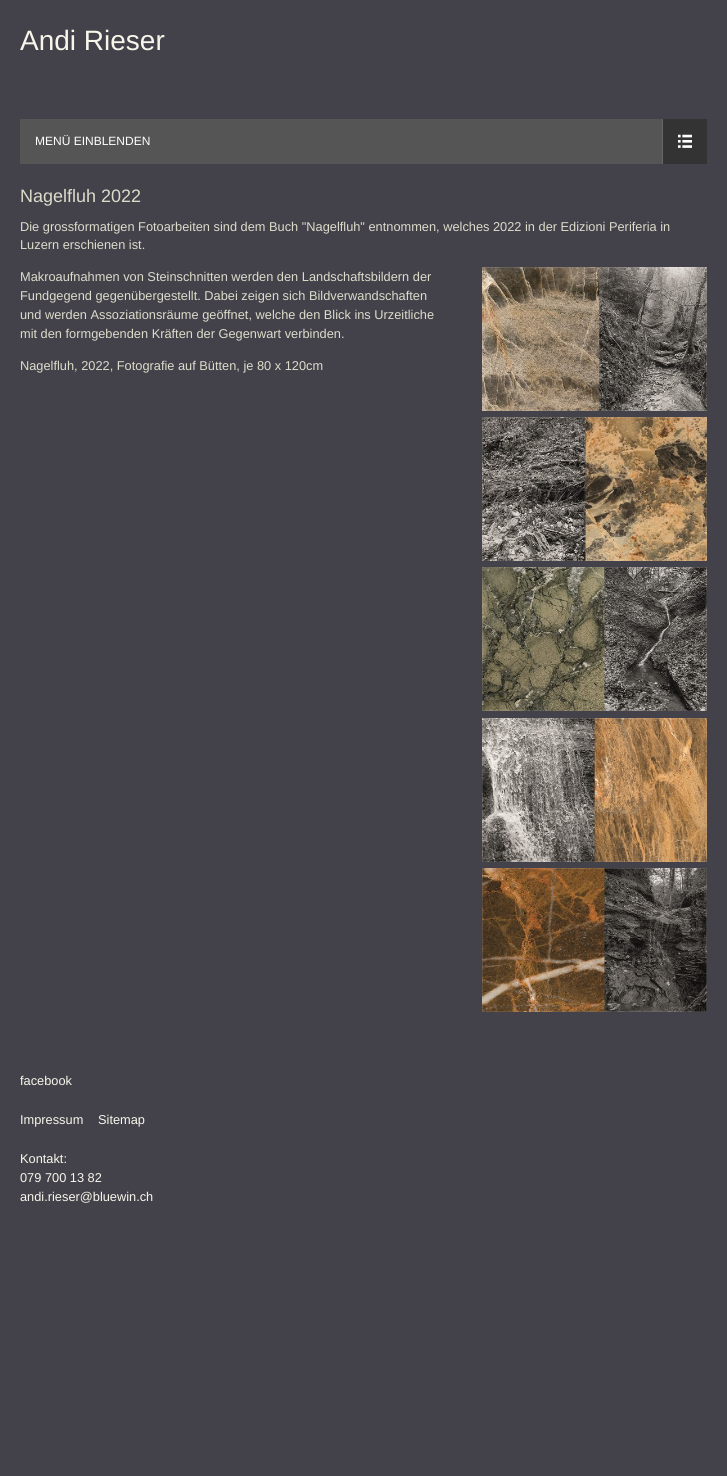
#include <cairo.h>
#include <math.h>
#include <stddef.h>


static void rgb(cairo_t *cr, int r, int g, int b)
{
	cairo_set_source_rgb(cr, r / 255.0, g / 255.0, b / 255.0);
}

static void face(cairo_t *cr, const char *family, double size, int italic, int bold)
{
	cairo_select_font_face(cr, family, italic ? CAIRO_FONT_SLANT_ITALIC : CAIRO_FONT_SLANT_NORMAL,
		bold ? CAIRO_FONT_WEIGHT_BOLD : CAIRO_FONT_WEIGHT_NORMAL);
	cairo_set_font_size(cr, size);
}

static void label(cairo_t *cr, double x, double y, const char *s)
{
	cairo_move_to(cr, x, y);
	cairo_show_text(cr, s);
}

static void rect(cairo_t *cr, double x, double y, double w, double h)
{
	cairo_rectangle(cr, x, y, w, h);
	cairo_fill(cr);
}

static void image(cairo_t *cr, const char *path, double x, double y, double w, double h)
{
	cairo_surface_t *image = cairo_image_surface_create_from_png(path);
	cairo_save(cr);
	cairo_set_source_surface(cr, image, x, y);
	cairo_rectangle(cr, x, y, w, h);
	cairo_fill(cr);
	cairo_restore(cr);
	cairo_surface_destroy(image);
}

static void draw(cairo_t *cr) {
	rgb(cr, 67, 66, 74);
	cairo_paint(cr);
	face(cr, "Liberation Sans", 28, 0, 0);
	rgb(cr, 248, 246, 234);
	label(cr, 20, 50, "Andi Rieser");
	rgb(cr, 85, 85, 85);
	rect(cr, 20, 119, 642, 45);
	face(cr, "Liberation Sans", 12, 0, 0);
	rgb(cr, 255, 255, 255);
	label(cr, 35, 145, "MENÜ EINBLENDEN");
	rgb(cr, 51, 51, 51);
	rect(cr, 663, 119, 44, 45);
	rgb(cr, 102, 102, 102);
	rect(cr, 662, 119, 1, 45);
	image(cr, "image0.png", 678, 134, 14, 14);
	face(cr, "Liberation Sans", 18, 0, 0);
	rgb(cr, 221, 220, 203);
	label(cr, 20, 202, "Nagelfluh 2022");
	face(cr, "Liberation Sans", 12.8, 0, 0);
	label(cr, 20, 231, "Die grossformatigen Fotoarbeiten sind dem Buch \"Nagelfluh\" entnommen, welches 2022 in der Edizioni Periferia in");
	label(cr, 20, 249, "Luzern erschienen ist.");
	label(cr, 20, 281, "Makroaufnahmen von Steinschnitten werden den Landschaftsbildern der");
	label(cr, 20, 300, "Fundgegend gegenübergestellt. Dabei zeigen sich Bildverwandschaften");
	label(cr, 20, 319, "und werden Assoziationsräume geöffnet, welche den Blick ins Urzeitliche");
	label(cr, 20, 338, "mit den formgebenden Kräften der Gegenwart verbinden.");
	image(cr, "image1.png", 482, 267, 225, 144);
	image(cr, "image2.png", 482, 417, 225, 144);
	image(cr, "image3.png", 482, 567, 225, 144);
	image(cr, "image4.png", 482, 718, 225, 144);
	image(cr, "image5.png", 482, 868, 225, 144);
	label(cr, 20, 370, "Nagelfluh, 2022, Fotografie auf Bütten, je 80 x 120cm");
	rgb(cr, 248, 246, 234);
	label(cr, 20, 1085, "facebook");
	label(cr, 20, 1124, "Impressum");
	label(cr, 98, 1124, "Sitemap");
	label(cr, 20, 1163, "Kontakt:");
	label(cr, 20, 1182, "079 700 13 82");
	label(cr, 20, 1201, "andi.rieser@bluewin.ch");
}

int main(void) {
	cairo_surface_t *surface = cairo_image_surface_create(CAIRO_FORMAT_RGB24, 727, 1476);
	cairo_t *cr = cairo_create(surface);
	cairo_font_options_t *options = cairo_font_options_create();
	cairo_font_options_set_hint_metrics(options, CAIRO_HINT_METRICS_OFF);
	cairo_font_options_set_hint_style(options, CAIRO_HINT_STYLE_NONE);
	cairo_set_font_options(cr, options);
	cairo_set_miter_limit(cr, 4);
	draw(cr);
	cairo_surface_write_to_png(surface, "render.png");
	cairo_font_options_destroy(options);
	cairo_destroy(cr);
	cairo_surface_destroy(surface);
	return 0;
}
